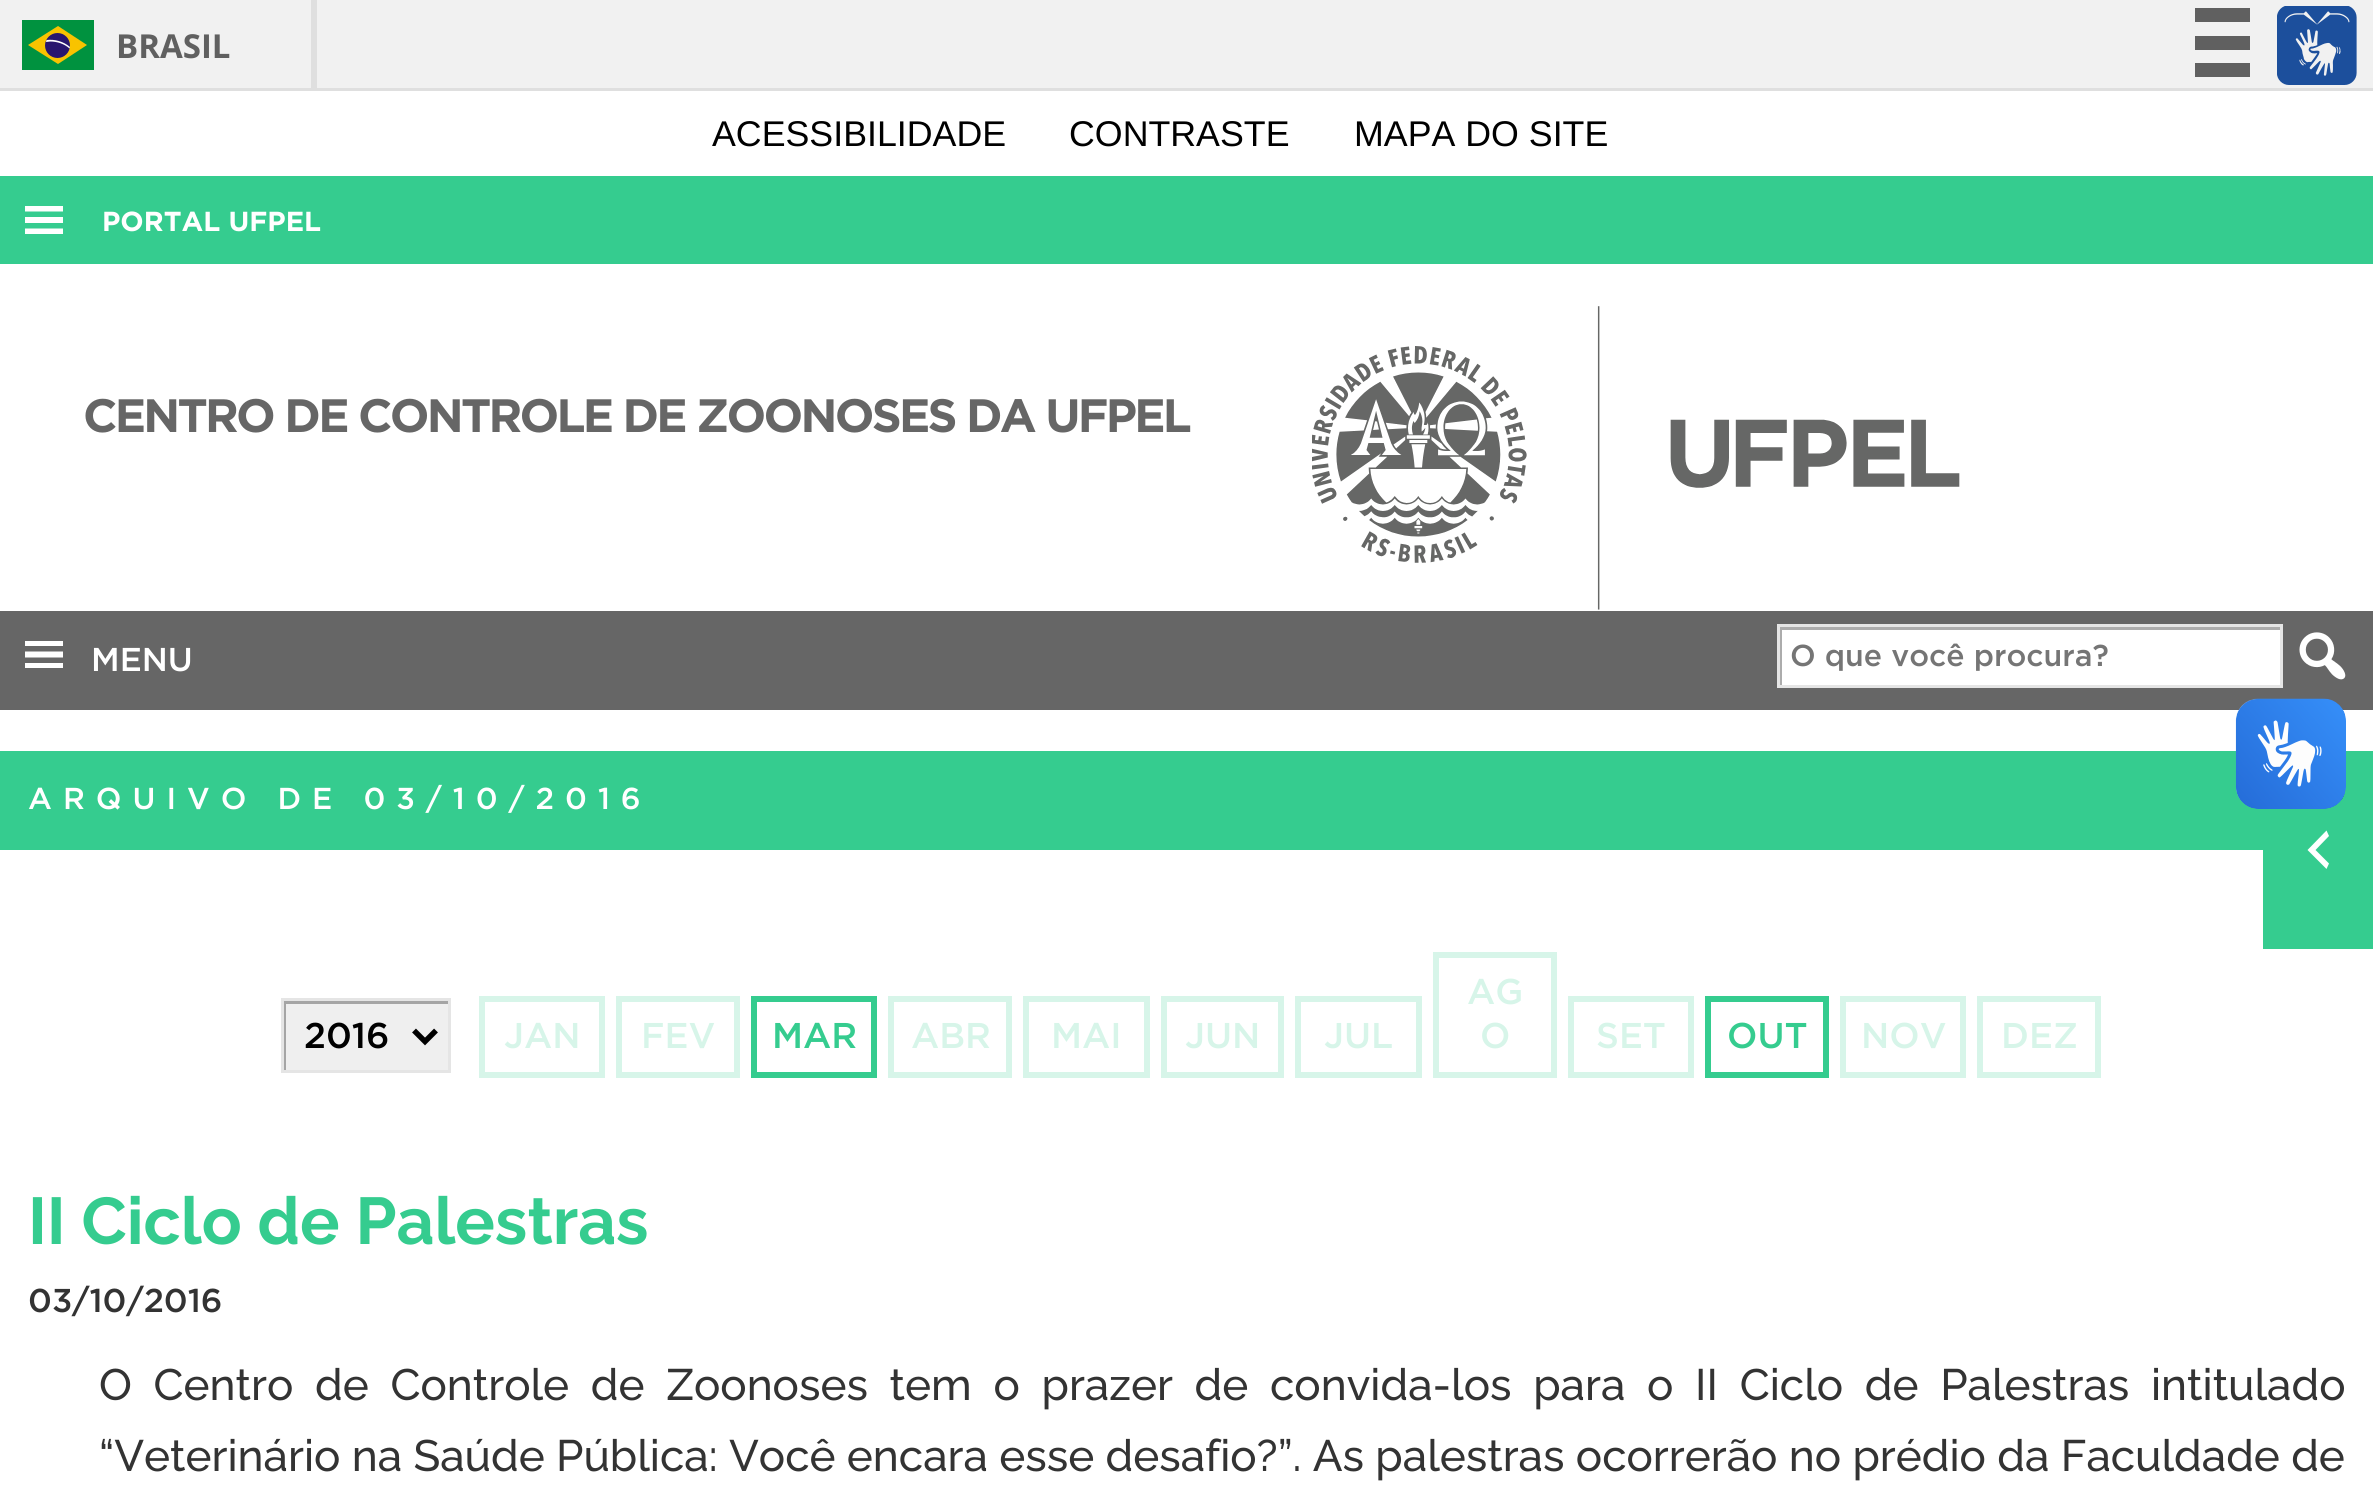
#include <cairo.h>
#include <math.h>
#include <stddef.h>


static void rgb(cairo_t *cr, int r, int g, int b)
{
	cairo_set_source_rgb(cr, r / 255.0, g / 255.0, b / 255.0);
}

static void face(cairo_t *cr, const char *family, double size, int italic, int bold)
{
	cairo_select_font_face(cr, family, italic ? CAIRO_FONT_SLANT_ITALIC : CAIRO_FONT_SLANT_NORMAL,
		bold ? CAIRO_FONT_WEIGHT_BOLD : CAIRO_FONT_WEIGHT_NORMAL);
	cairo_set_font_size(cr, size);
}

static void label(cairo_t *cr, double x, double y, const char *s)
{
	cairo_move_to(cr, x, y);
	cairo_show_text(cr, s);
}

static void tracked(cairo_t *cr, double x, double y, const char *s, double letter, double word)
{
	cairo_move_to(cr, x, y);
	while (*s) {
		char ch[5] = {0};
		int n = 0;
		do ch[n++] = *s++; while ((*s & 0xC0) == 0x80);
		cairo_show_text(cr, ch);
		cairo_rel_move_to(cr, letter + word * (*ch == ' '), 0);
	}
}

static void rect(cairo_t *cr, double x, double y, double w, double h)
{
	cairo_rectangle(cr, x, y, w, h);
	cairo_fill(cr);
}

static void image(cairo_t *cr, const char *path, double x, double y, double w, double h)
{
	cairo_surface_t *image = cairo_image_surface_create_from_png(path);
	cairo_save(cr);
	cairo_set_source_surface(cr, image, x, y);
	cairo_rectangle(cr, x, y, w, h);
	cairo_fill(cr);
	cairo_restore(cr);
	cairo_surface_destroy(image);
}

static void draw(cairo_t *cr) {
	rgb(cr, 255, 255, 255);
	cairo_paint(cr);
	rgb(cr, 241, 241, 241);
	rect(cr, 0, 0, 2373, 88);
	rgb(cr, 223, 223, 223);
	rect(cr, 0, 88, 2373, 3);
	rect(cr, 311, 0, 6, 88);
	rgb(cr, 0, 146, 63);
	rect(cr, 22, 20, 72, 50);
	rgb(cr, 248, 195, 0);
	cairo_new_path(cr);
	cairo_move_to(cr, 58, 26);
	cairo_line_to(cr, 28, 45);
	cairo_line_to(cr, 58, 64);
	cairo_line_to(cr, 87, 45);
	cairo_close_path(cr);
	cairo_fill(cr);
	rgb(cr, 40, 22, 111);
	cairo_arc(cr, 57.5, 45.5, 12.5, 0, 2 * M_PI);
	cairo_fill(cr);
	rgb(cr, 255, 255, 255);
	cairo_new_path(cr);
	cairo_move_to(cr, 50, 41.5);
	cairo_curve_to(cr, 57.5, 41.5, 64.5, 44, 69.5, 48.5);
	cairo_line_to(cr, 70, 47);
	cairo_curve_to(cr, 63.5, 41.5, 55, 39, 46.5, 40);
	cairo_line_to(cr, 46, 42);
	cairo_line_to(cr, 50.5, 41.5);
	cairo_close_path(cr);
	cairo_fill(cr);
	face(cr, "Open Sans", 33, 0, 1);
	rgb(cr, 96, 96, 96);
	label(cr, 116, 58, "BRASIL");
	rect(cr, 2195, 8, 55, 14);
	rect(cr, 2195, 36, 55, 14);
	rect(cr, 2195, 63, 55, 14);
	image(cr, "image0.png", 2277, 6, 80, 79);
	face(cr, "Liberation Sans", 35.75, 0, 0);
	rgb(cr, 0, 0, 0);
	label(cr, 712, 146, "ACESSIBILIDADE");
	label(cr, 1069, 146, "CONTRASTE");
	label(cr, 1354, 146, "MAPA DO SITE");
	rgb(cr, 53, 204, 143);
	rect(cr, 0, 176, 2373, 88);
	rgb(cr, 255, 255, 255);
	cairo_new_path(cr);
	cairo_move_to(cr, 25, 234);
	cairo_line_to(cr, 63, 234);
	cairo_line_to(cr, 63, 228.5);
	cairo_line_to(cr, 25, 228.5);
	cairo_close_path(cr);
	cairo_move_to(cr, 25, 206);
	cairo_line_to(cr, 25, 211.5);
	cairo_line_to(cr, 63, 211.5);
	cairo_line_to(cr, 63, 206);
	cairo_close_path(cr);
	cairo_move_to(cr, 25, 223);
	cairo_line_to(cr, 63, 223);
	cairo_line_to(cr, 63, 217);
	cairo_line_to(cr, 25, 217);
	cairo_close_path(cr);
	cairo_fill(cr);
	face(cr, "Gotham", 27.5, 0, 1);
	label(cr, 102, 231, "PORTAL UFPEL");
	face(cr, "Gotham", 46.75, 0, 1);
	rgb(cr, 102, 102, 102);
	tracked(cr, 83, 432, "CENTRO DE CONTROLE DE ZOONOSES DA UFPEL", -2.75, 0);
	image(cr, "image1.png", 1312, 306, 648, 304);
	rect(cr, 0, 611, 2373, 99);
	rgb(cr, 255, 255, 255);
	rect(cr, 1782, 630, 498, 55);
	cairo_save(cr);
	cairo_rectangle(cr, 1779, 627, 501, 58);
	cairo_clip(cr);
	rgb(cr, 172, 172, 172);
	cairo_set_fill_rule(cr, CAIRO_FILL_RULE_EVEN_ODD);
	cairo_new_path(cr);
	cairo_move_to(cr, 1507, 355);
	cairo_line_to(cr, 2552, 355);
	cairo_line_to(cr, 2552, 957);
	cairo_line_to(cr, 1507, 957);
	cairo_close_path(cr);
	cairo_move_to(cr, 1782, 630);
	cairo_line_to(cr, 2282, 630);
	cairo_line_to(cr, 2282, 688);
	cairo_line_to(cr, 1782, 688);
	cairo_close_path(cr);
	cairo_fill(cr);
	cairo_restore(cr);
	cairo_rectangle(cr, 1778.5, 625.5, 503, 61);
	rgb(cr, 229, 229, 229);
	cairo_set_line_width(cr, 3);
	cairo_stroke(cr);
	face(cr, "Gotham Medium", 30.25, 0, 0);
	rgb(cr, 117, 117, 117);
	label(cr, 1790, 666, "O que você procura?");
	image(cr, "image2.png", 2299, 632, 47, 48);
	rgb(cr, 255, 255, 255);
	cairo_new_path(cr);
	cairo_move_to(cr, 25, 668);
	cairo_line_to(cr, 63, 668);
	cairo_line_to(cr, 63, 663);
	cairo_line_to(cr, 25, 663);
	cairo_close_path(cr);
	cairo_move_to(cr, 25, 641);
	cairo_line_to(cr, 25, 646);
	cairo_line_to(cr, 63, 646);
	cairo_line_to(cr, 63, 641);
	cairo_close_path(cr);
	cairo_move_to(cr, 25, 657.5);
	cairo_line_to(cr, 63, 657.5);
	cairo_line_to(cr, 63, 651.5);
	cairo_line_to(cr, 25, 651.5);
	cairo_close_path(cr);
	cairo_fill(cr);
	face(cr, "Gotham Medium", 33, 0, 0);
	label(cr, 91, 671, "MENU");
	rgb(cr, 53, 204, 143);
	rect(cr, 2263, 751, 110, 198);
	rgb(cr, 255, 255, 255);
	cairo_new_path(cr);
	cairo_move_to(cr, 2329, 836);
	cairo_line_to(cr, 2315.5, 850);
	cairo_line_to(cr, 2329, 863.5);
	cairo_line_to(cr, 2326.5, 869);
	cairo_line_to(cr, 2307.5, 850);
	cairo_line_to(cr, 2326.5, 830.5);
	cairo_close_path(cr);
	cairo_fill(cr);
	rgb(cr, 53, 204, 143);
	rect(cr, 0, 751, 2263, 99);
	face(cr, "Gotham Medium", 30.25, 0, 0);
	rgb(cr, 255, 255, 255);
	tracked(cr, 28, 809, "ARQUIVO DE 03/10/2016", 11, 0);
	rgb(cr, 239, 239, 239);
	rect(cr, 286, 1004, 162, 66);
	cairo_save(cr);
	cairo_rectangle(cr, 283, 1001, 165, 69);
	cairo_clip(cr);
	rgb(cr, 165, 165, 165);
	cairo_set_fill_rule(cr, CAIRO_FILL_RULE_EVEN_ODD);
	cairo_new_path(cr);
	cairo_move_to(cr, 11, 729);
	cairo_line_to(cr, 720, 729);
	cairo_line_to(cr, 720, 1342);
	cairo_line_to(cr, 11, 1342);
	cairo_close_path(cr);
	cairo_move_to(cr, 286, 1004);
	cairo_line_to(cr, 451, 1004);
	cairo_line_to(cr, 451, 1072);
	cairo_line_to(cr, 286, 1072);
	cairo_close_path(cr);
	cairo_fill(cr);
	cairo_restore(cr);
	cairo_rectangle(cr, 282.5, 999.5, 167, 72);
	rgb(cr, 229, 229, 229);
	cairo_stroke(cr);
	cairo_new_path(cr);
	cairo_move_to(cr, 414, 1030.5);
	cairo_line_to(cr, 425, 1041.5);
	cairo_line_to(cr, 436, 1030.5);
	rgb(cr, 0, 0, 0);
	cairo_set_line_width(cr, 5.5);
	cairo_stroke(cr);
	face(cr, "Gotham Medium", 35.75, 0, 0);
	label(cr, 304, 1048, "2016");
	cairo_rectangle(cr, 482, 999, 120, 76);
	rgb(cr, 215, 245, 233);
	cairo_set_line_width(cr, 6);
	cairo_stroke(cr);
	label(cr, 504, 1048, "JAN");
	cairo_rectangle(cr, 619, 999, 118, 76);
	cairo_stroke(cr);
	label(cr, 641, 1048, "FEV");
	cairo_rectangle(cr, 754, 999, 120, 76);
	rgb(cr, 53, 204, 143);
	cairo_stroke(cr);
	label(cr, 772, 1048, "MAR");
	cairo_rectangle(cr, 891, 999, 118, 76);
	rgb(cr, 215, 245, 233);
	cairo_stroke(cr);
	label(cr, 911, 1048, "ABR");
	cairo_rectangle(cr, 1026, 999, 121, 76);
	cairo_stroke(cr);
	label(cr, 1051, 1048, "MAI");
	cairo_rectangle(cr, 1164, 999, 117, 76);
	cairo_stroke(cr);
	label(cr, 1185, 1048, "JUN");
	cairo_rectangle(cr, 1298, 999, 121, 76);
	cairo_stroke(cr);
	label(cr, 1324, 1048, "JUL");
	cairo_rectangle(cr, 1436, 955, 118, 120);
	cairo_stroke(cr);
	label(cr, 1467, 1004, "AG");
	label(cr, 1480, 1048, "O");
	cairo_rectangle(cr, 1571, 999, 120, 76);
	cairo_stroke(cr);
	label(cr, 1596, 1048, "SET");
	cairo_rectangle(cr, 1708, 999, 118, 76);
	rgb(cr, 53, 204, 143);
	cairo_stroke(cr);
	label(cr, 1727, 1048, "OUT");
	cairo_rectangle(cr, 1843, 999, 120, 76);
	rgb(cr, 215, 245, 233);
	cairo_stroke(cr);
	label(cr, 1861, 1048, "NOV");
	cairo_rectangle(cr, 1980, 999, 118, 76);
	cairo_stroke(cr);
	label(cr, 2001, 1048, "DEZ");
	face(cr, "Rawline", 66, 0, 1);
	rgb(cr, 53, 204, 143);
	label(cr, 28, 1244, "II Ciclo de Palestras");
	face(cr, "Gotham Medium", 33, 0, 0);
	rgb(cr, 51, 51, 51);
	label(cr, 28, 1312, "03/10/2016");
	face(cr, "Rawline Medium", 44, 0, 0);
	tracked(cr, 99, 1400, "O Centro de Controle de Zoonoses tem o prazer de convida-los para o II Ciclo de Palestras intitulado", 0, 10.6);
	tracked(cr, 99, 1471, "“Veterinário na Saúde Pública: Você encara esse desafio?”. As palestras ocorrerão no prédio da Faculdade de", 0, 0.25);
	image(cr, "image3.png", 2235, 698, 111, 111);
	image(cr, "image4.png", 2236, 699, 110, 110);
}

int main(void) {
	cairo_surface_t *surface = cairo_image_surface_create(CAIRO_FORMAT_RGB24, 2373, 1502);
	cairo_t *cr = cairo_create(surface);
	cairo_font_options_t *options = cairo_font_options_create();
	cairo_font_options_set_hint_metrics(options, CAIRO_HINT_METRICS_OFF);
	cairo_font_options_set_hint_style(options, CAIRO_HINT_STYLE_NONE);
	cairo_set_font_options(cr, options);
	cairo_set_miter_limit(cr, 4);
	draw(cr);
	cairo_surface_write_to_png(surface, "render.png");
	cairo_font_options_destroy(options);
	cairo_destroy(cr);
	cairo_surface_destroy(surface);
	return 0;
}
